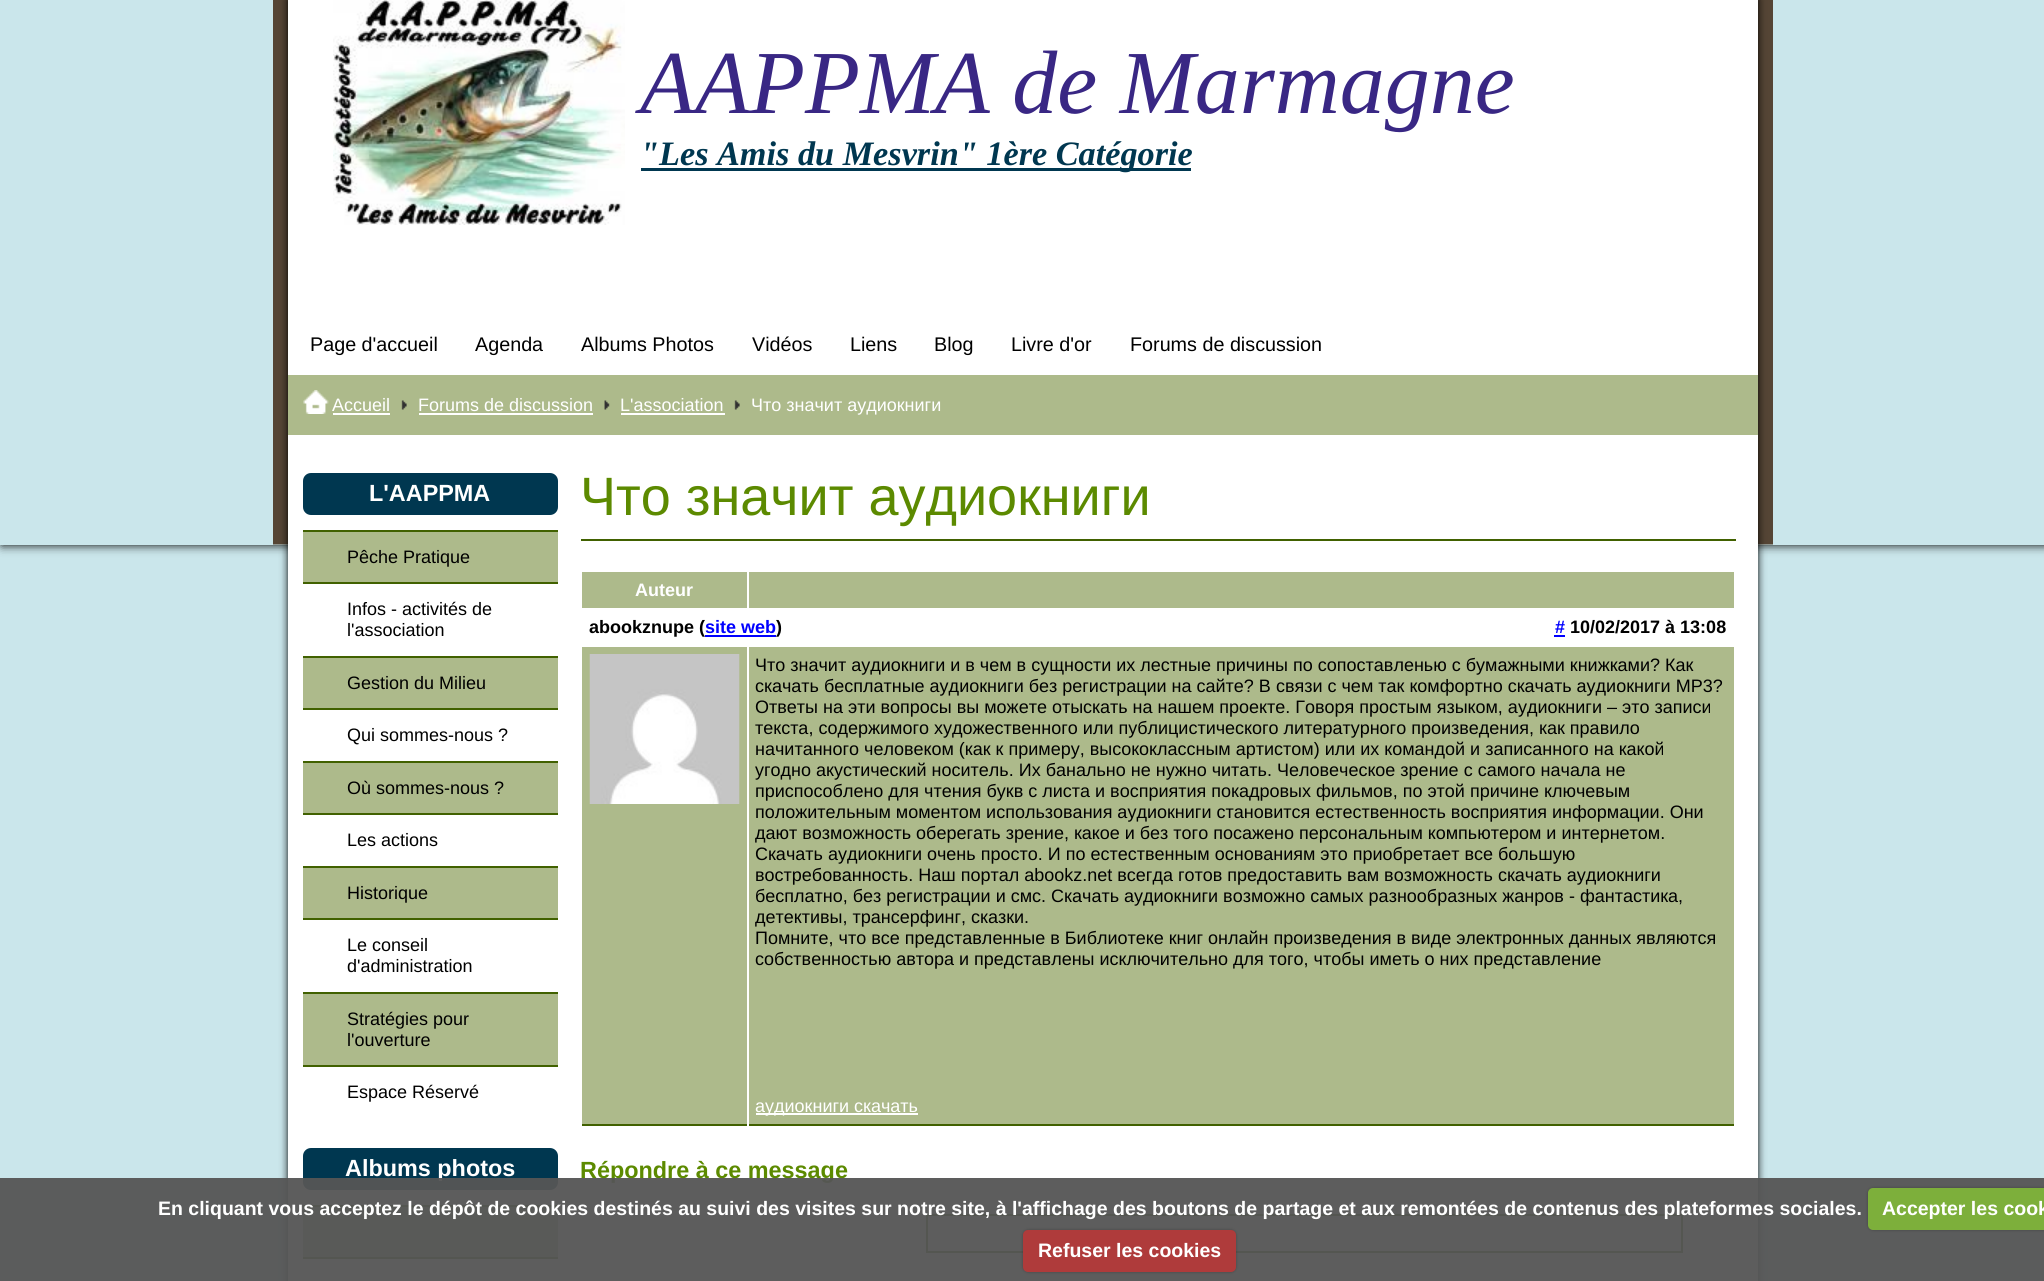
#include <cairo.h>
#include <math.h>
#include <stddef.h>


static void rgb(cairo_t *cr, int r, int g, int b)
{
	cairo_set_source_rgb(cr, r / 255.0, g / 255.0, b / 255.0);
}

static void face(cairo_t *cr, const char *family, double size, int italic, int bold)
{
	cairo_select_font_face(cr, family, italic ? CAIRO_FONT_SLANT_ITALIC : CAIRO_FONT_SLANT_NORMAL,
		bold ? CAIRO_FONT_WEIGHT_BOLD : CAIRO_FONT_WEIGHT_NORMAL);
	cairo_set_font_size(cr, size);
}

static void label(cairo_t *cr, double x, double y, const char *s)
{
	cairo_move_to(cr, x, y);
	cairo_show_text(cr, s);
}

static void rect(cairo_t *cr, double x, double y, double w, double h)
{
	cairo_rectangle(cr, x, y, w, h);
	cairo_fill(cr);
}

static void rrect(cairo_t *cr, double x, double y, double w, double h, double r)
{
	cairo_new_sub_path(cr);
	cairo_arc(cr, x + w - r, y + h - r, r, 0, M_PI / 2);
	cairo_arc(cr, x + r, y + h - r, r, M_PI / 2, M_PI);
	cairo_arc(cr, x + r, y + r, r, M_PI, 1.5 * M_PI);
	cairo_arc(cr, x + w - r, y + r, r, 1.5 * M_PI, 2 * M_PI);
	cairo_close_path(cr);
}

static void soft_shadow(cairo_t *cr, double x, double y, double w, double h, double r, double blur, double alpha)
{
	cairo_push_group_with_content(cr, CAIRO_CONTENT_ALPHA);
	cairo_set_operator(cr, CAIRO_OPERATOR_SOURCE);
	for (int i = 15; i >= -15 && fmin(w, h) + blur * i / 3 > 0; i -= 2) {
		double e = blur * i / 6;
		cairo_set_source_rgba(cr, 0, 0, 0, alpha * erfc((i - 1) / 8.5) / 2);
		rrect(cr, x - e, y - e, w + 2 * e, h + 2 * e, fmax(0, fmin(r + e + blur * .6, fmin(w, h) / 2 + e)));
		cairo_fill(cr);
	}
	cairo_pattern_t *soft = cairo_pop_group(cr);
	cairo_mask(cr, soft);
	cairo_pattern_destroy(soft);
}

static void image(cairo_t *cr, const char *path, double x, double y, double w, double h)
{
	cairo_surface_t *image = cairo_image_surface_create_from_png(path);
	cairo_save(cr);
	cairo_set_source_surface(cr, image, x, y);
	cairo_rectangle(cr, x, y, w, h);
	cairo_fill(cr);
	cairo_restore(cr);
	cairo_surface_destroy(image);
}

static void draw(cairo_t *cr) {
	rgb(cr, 202, 230, 235);
	cairo_paint(cr);
	cairo_save(cr);
	cairo_set_fill_rule(cr, CAIRO_FILL_RULE_EVEN_ODD);
	cairo_new_path(cr);
	cairo_move_to(cr, 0, 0);
	cairo_line_to(cr, 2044, 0);
	cairo_line_to(cr, 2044, 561);
	cairo_line_to(cr, 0, 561);
	cairo_close_path(cr);
	cairo_move_to(cr, 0, 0);
	cairo_line_to(cr, 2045, 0);
	cairo_line_to(cr, 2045, 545);
	cairo_line_to(cr, 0, 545);
	cairo_close_path(cr);
	cairo_clip(cr);
	rgb(cr, 0, 0, 0);
	soft_shadow(cr, 2, 0, 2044, 545, 0, 5, 1);
	cairo_restore(cr);
	image(cr, "image0.png", 273, 0, 1500, 545);
	rgb(cr, 0, 0, 0);
	soft_shadow(cr, 288, 0, 1470, 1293, 0, 4, 1);
	rgb(cr, 255, 255, 255);
	rect(cr, 288, 0, 1470, 1281);
	image(cr, "image1.png", 333, 0, 292, 225);
	face(cr, "Liberation Serif", 90, 1, 0);
	rgb(cr, 57, 39, 132);
	label(cr, 640, 113, "AAPPMA de Marmagne");
	rgb(cr, 0, 55, 80);
	rect(cr, 641, 168, 550, 3);
	face(cr, "Liberation Serif", 34.25, 1, 1);
	label(cr, 640, 165, "\"Les Amis du Mesvrin\" 1ère Catégorie");
	face(cr, "Liberation Sans", 19.75, 0, 0);
	rgb(cr, 0, 0, 0);
	label(cr, 310, 351, "Page d'accueil");
	label(cr, 475, 351, "Agenda");
	label(cr, 581, 351, "Albums Photos");
	label(cr, 752, 351, "Vidéos");
	label(cr, 850, 351, "Liens");
	label(cr, 934, 351, "Blog");
	label(cr, 1011, 351, "Livre d'or");
	label(cr, 1130, 351, "Forums de discussion");
	rgb(cr, 173, 186, 139);
	rect(cr, 288, 375, 1470, 60);
	image(cr, "image2.png", 303, 390, 26, 24);
	face(cr, "Liberation Sans", 18, 0, 0);
	rgb(cr, 255, 255, 255);
	label(cr, 332, 411, "Accueil");
	rect(cr, 333, 413, 57, 2);
	image(cr, "image3.png", 401, 400, 6, 10);
	label(cr, 418, 411, "Forums de discussion");
	rect(cr, 419, 413, 174, 2);
	image(cr, "image4.png", 604, 400, 6, 10);
	label(cr, 620, 411, "L'association");
	rect(cr, 621, 413, 104, 2);
	image(cr, "image3.png", 734, 400, 6, 10);
	label(cr, 751, 411, "Что значит аудиокниги");
	rgb(cr, 0, 55, 80);
	rrect(cr, 303, 473, 255, 42, 8);
	cairo_fill(cr);
	face(cr, "Liberation Sans", 23.4, 0, 1);
	rgb(cr, 255, 255, 255);
	label(cr, 369, 501, "L'AAPPMA");
	rgb(cr, 173, 186, 139);
	rect(cr, 303, 532, 255, 50);
	rgb(cr, 65, 97, 0);
	rect(cr, 303, 530, 255, 2);
	rect(cr, 303, 582, 255, 2);
	face(cr, "Liberation Sans", 18, 0, 0);
	rgb(cr, 0, 0, 0);
	label(cr, 347, 563, "Pêche Pratique");
	label(cr, 347, 615, "Infos - activités de");
	label(cr, 347, 636, "l'association");
	rgb(cr, 173, 186, 139);
	rect(cr, 303, 658, 255, 50);
	rgb(cr, 65, 97, 0);
	rect(cr, 303, 656, 255, 2);
	rect(cr, 303, 708, 255, 2);
	rgb(cr, 0, 0, 0);
	label(cr, 347, 689, "Gestion du Milieu");
	label(cr, 347, 741, "Qui sommes-nous ?");
	rgb(cr, 173, 186, 139);
	rect(cr, 303, 763, 255, 50);
	rgb(cr, 65, 97, 0);
	rect(cr, 303, 761, 255, 2);
	rect(cr, 303, 813, 255, 2);
	rgb(cr, 0, 0, 0);
	label(cr, 347, 794, "Où sommes-nous ?");
	label(cr, 347, 846, "Les actions");
	rgb(cr, 173, 186, 139);
	rect(cr, 303, 868, 255, 50);
	rgb(cr, 65, 97, 0);
	rect(cr, 303, 866, 255, 2);
	rect(cr, 303, 918, 255, 2);
	rgb(cr, 0, 0, 0);
	label(cr, 347, 899, "Historique");
	label(cr, 347, 951, "Le conseil");
	label(cr, 347, 972, "d'administration");
	rgb(cr, 173, 186, 139);
	rect(cr, 303, 994, 255, 71);
	rgb(cr, 65, 97, 0);
	rect(cr, 303, 992, 255, 2);
	rect(cr, 303, 1065, 255, 2);
	rgb(cr, 0, 0, 0);
	label(cr, 347, 1025, "Stratégies pour");
	label(cr, 347, 1046, "l'ouverture");
	label(cr, 347, 1098, "Espace Réservé");
	rgb(cr, 0, 55, 80);
	rrect(cr, 303, 1148, 255, 42, 8);
	cairo_fill(cr);
	face(cr, "Liberation Sans", 23.4, 0, 1);
	rgb(cr, 255, 255, 255);
	label(cr, 345, 1176, "Albums photos");
	rgb(cr, 173, 186, 139);
	rect(cr, 303, 1207, 255, 50);
	rgb(cr, 65, 97, 0);
	rect(cr, 303, 1205, 255, 2);
	rect(cr, 303, 1257, 255, 2);
	rect(cr, 581, 539, 1155, 2);
	face(cr, "Liberation Sans", 54, 0, 0);
	rgb(cr, 92, 138, 0);
	label(cr, 580, 515, "Что значит аудиокниги");
	rgb(cr, 173, 186, 139);
	rect(cr, 582, 572, 165, 36);
	face(cr, "Liberation Sans", 18, 0, 1);
	rgb(cr, 255, 255, 255);
	label(cr, 635, 596, "Auteur");
	rgb(cr, 173, 186, 139);
	rect(cr, 749, 572, 985, 36);
	rgb(cr, 0, 0, 0);
	label(cr, 589, 633, "abookznupe (");
	rgb(cr, 0, 0, 255);
	label(cr, 705, 633, "site web");
	rect(cr, 705, 635, 71, 2);
	rgb(cr, 0, 0, 0);
	label(cr, 776, 633, ")");
	rgb(cr, 0, 0, 255);
	label(cr, 1555, 633, "#");
	rect(cr, 1554, 635, 11, 2);
	rgb(cr, 0, 0, 0);
	label(cr, 1570, 633, "10/02/2017 à 13:08");
	rgb(cr, 173, 186, 139);
	rect(cr, 582, 647, 165, 477);
	rgb(cr, 65, 97, 0);
	rect(cr, 582, 1124, 165, 2);
	image(cr, "image5.png", 589, 654, 151, 150);
	rgb(cr, 173, 186, 139);
	rect(cr, 749, 647, 985, 477);
	rgb(cr, 65, 97, 0);
	rect(cr, 749, 1124, 985, 2);
	face(cr, "Liberation Sans", 18, 0, 0);
	rgb(cr, 0, 0, 0);
	label(cr, 755, 671, "Что значит аудиокниги и в чем в сущности их лестные причины по сопоставленью с бумажными книжками? Как");
	label(cr, 755, 692, "скачать бесплатные аудиокниги без регистрации на сайте? В связи с чем так комфортно скачать аудиокниги MP3?");
	label(cr, 755, 713, "Ответы на эти вопросы вы можете отыскать на нашем проекте. Говоря простым языком, аудиокниги – это записи");
	label(cr, 755, 734, "текста, содержимого художественного или публицистического литературного произведения, как правило");
	label(cr, 755, 755, "начитанного человеком (как к примеру, высококлассным артистом) или их командой и записанного на какой");
	label(cr, 755, 776, "угодно акустический носитель. Их банально не нужно читать. Человеческое зрение с самого начала не");
	label(cr, 755, 797, "приспособлено для чтения букв с листа и восприятия покадровых фильмов, по этой причине ключевым");
	label(cr, 755, 818, "положительным моментом использования аудиокниги становится естественность восприятия информации. Они");
	label(cr, 755, 839, "дают возможность оберегать зрение, какое и без того посажено персональным компьютером и интернетом.");
	label(cr, 755, 860, "Скачать аудиокниги очень просто. И по естественным основаниям это приобретает все большую");
	label(cr, 755, 881, "востребованность. Наш портал abookz.net всегда готов предоставить вам возможность скачать аудиокниги");
	label(cr, 755, 902, "бесплатно, без регистрации и смс. Скачать аудиокниги возможно самых разнообразных жанров - фантастика,");
	label(cr, 755, 923, "детективы, трансерфинг, сказки.");
	label(cr, 755, 944, "Помните, что все представленные в Библиотеке книг онлайн произведения в виде электронных данных являются");
	label(cr, 755, 965, "собственностью автора и представлены исключительно для того, чтобы иметь о них представление");
	rgb(cr, 255, 255, 255);
	rect(cr, 756, 1113, 162, 2);
	label(cr, 755, 1112, "аудиокниги скачать");
	face(cr, "Liberation Sans", 23.4, 0, 1);
	rgb(cr, 92, 138, 0);
	label(cr, 580, 1178, "Répondre à ce message");
	cairo_rectangle(cr, 927, 1215, 755, 37);
	rgb(cr, 65, 97, 0);
	cairo_stroke(cr);
	cairo_set_source_rgba(cr, 0.337, 0.337, 0.337, 0.95);
	rect(cr, 0, 1178, 2044, 103);
	face(cr, "Liberation Sans", 19.5, 0, 1);
	rgb(cr, 255, 255, 255);
	label(cr, 158, 1215, "En cliquant vous acceptez le dépôt de cookies destinés au suivi des visites sur notre site, à l'affichage des boutons de partage et aux remontées de contenus des plateformes sociales.");
	rgb(cr, 0, 0, 0);
	soft_shadow(cr, 1868, 1188, 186, 42, 5, 1.5, 0.25);
	rgb(cr, 125, 175, 59);
	rrect(cr, 1868, 1188, 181, 42, 5);
	cairo_fill(cr);
	rgb(cr, 255, 255, 255);
	label(cr, 1882, 1215, "Accepter les cook");
	rgb(cr, 0, 0, 0);
	soft_shadow(cr, 1023, 1230, 213, 42, 5, 1.5, 0.25);
	rgb(cr, 175, 59, 59);
	rrect(cr, 1023, 1230, 213, 42, 5);
	cairo_fill(cr);
	rgb(cr, 255, 255, 255);
	label(cr, 1038, 1257, "Refuser les cookies");
}

int main(void) {
	cairo_surface_t *surface = cairo_image_surface_create(CAIRO_FORMAT_RGB24, 2044, 1281);
	cairo_t *cr = cairo_create(surface);
	cairo_font_options_t *options = cairo_font_options_create();
	cairo_font_options_set_hint_metrics(options, CAIRO_HINT_METRICS_OFF);
	cairo_font_options_set_hint_style(options, CAIRO_HINT_STYLE_NONE);
	cairo_set_font_options(cr, options);
	cairo_set_miter_limit(cr, 4);
	draw(cr);
	cairo_surface_write_to_png(surface, "render.png");
	cairo_font_options_destroy(options);
	cairo_destroy(cr);
	cairo_surface_destroy(surface);
	return 0;
}
